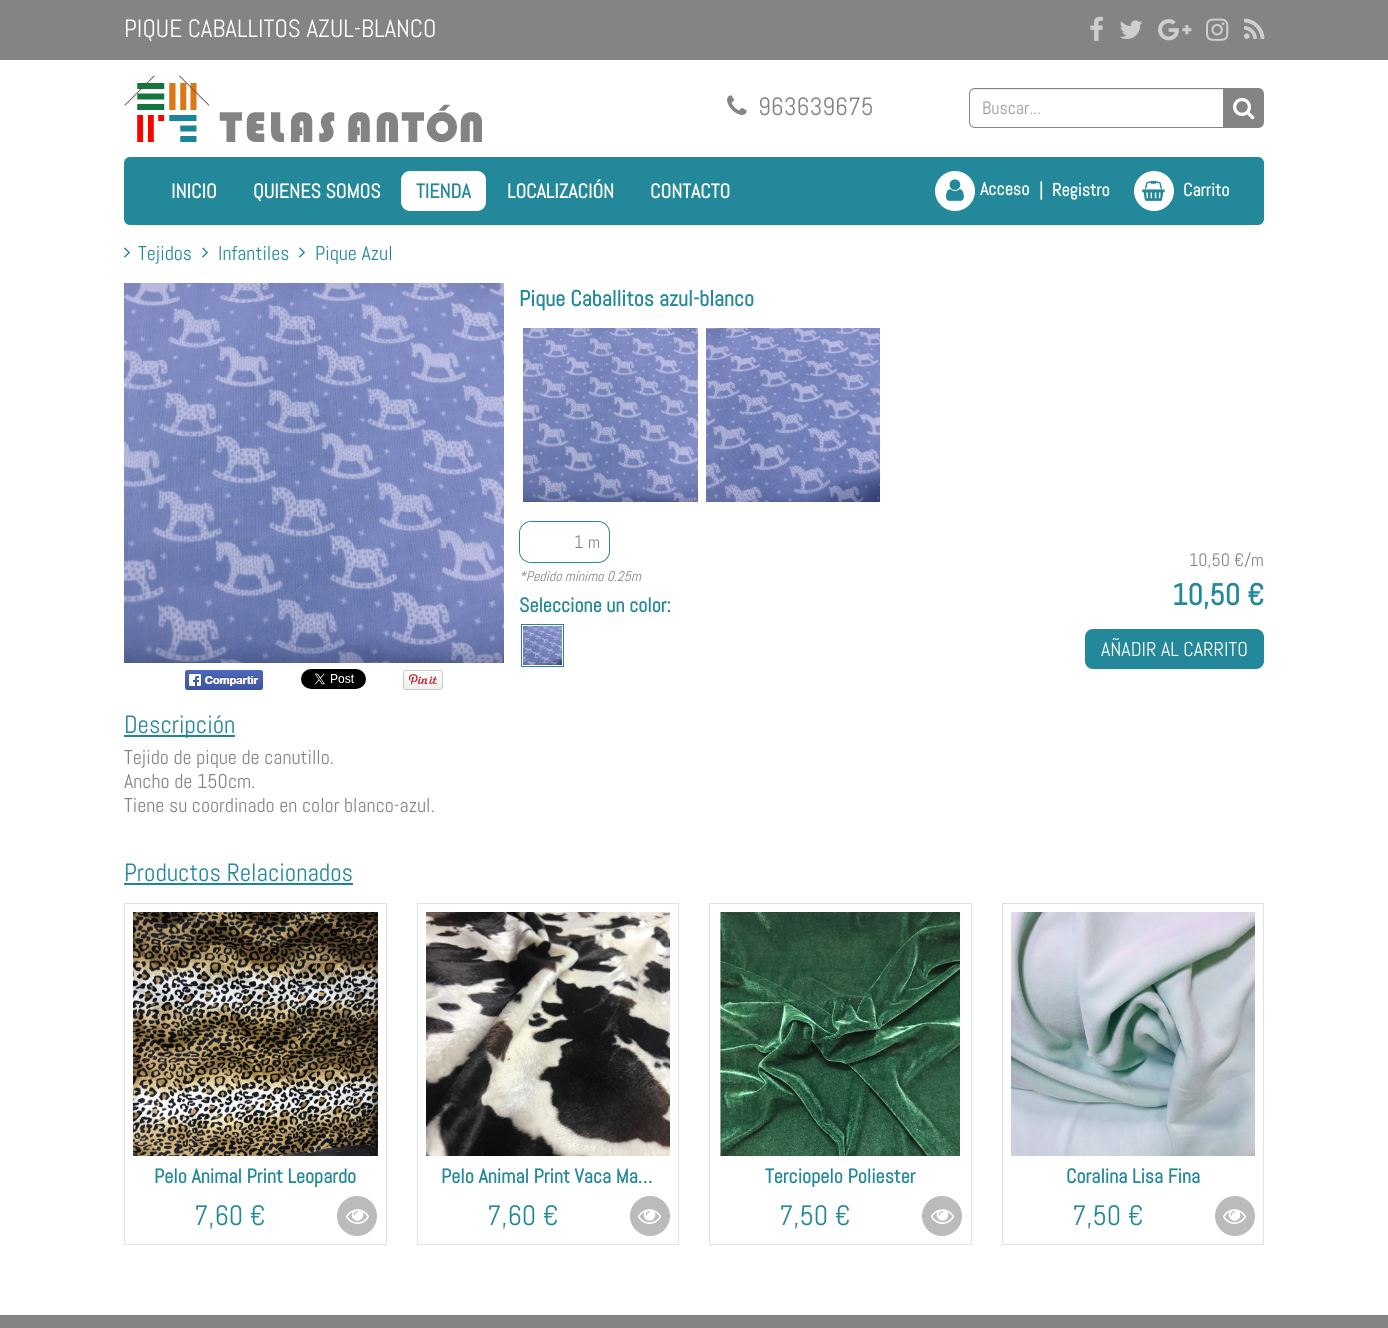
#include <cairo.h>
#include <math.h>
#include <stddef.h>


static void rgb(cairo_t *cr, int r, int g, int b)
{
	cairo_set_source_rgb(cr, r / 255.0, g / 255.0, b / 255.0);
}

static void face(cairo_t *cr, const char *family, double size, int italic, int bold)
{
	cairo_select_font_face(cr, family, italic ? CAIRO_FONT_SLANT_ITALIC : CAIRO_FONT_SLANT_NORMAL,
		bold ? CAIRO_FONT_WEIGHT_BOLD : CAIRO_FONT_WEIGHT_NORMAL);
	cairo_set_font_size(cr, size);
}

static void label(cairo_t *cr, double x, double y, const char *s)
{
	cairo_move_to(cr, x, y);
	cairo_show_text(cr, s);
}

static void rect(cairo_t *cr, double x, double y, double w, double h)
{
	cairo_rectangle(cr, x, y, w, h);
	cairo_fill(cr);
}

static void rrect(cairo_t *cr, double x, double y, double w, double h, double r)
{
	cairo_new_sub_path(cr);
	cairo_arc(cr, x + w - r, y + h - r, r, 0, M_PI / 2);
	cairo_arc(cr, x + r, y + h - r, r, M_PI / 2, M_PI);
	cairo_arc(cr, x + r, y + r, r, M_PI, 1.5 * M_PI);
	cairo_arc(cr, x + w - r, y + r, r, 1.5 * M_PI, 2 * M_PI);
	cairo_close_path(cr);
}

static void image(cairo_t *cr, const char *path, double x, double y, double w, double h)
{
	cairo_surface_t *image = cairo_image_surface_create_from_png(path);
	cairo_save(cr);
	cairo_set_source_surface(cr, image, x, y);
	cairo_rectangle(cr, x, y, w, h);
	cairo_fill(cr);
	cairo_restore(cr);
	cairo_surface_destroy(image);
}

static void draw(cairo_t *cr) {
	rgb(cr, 255, 255, 255);
	cairo_paint(cr);
	rgb(cr, 132, 132, 132);
	rect(cr, 0, 0, 1388, 60);
	face(cr, "Abel", 25, 0, 0);
	rgb(cr, 255, 255, 255);
	label(cr, 124, 37, "PIQUE CABALLITOS AZUL-BLANCO");
	image(cr, "image0.png", 1090, 16, 13, 25);
	image(cr, "image1.png", 1120, 20, 23, 19);
	image(cr, "image2.png", 1158, 19, 34, 22);
	image(cr, "image3.png", 1206, 18, 23, 23);
	image(cr, "image4.png", 1244, 18, 21, 21);
	image(cr, "image5.png", 124, 75, 358, 67);
	image(cr, "image6.png", 727, 95, 20, 20);
	rgb(cr, 132, 132, 132);
	label(cr, 758, 115, "963639675");
	rgb(cr, 236, 236, 236);
	cairo_new_path(cr);
	cairo_move_to(cr, 975, 90);
	cairo_line_to(cr, 1223, 90);
	cairo_line_to(cr, 1223, 89);
	cairo_line_to(cr, 975, 89);
	cairo_curve_to(cr, 972, 89, 970, 92, 970, 95);
	cairo_curve_to(cr, 970, 92, 972, 90, 975, 90);
	cairo_close_path(cr);
	cairo_fill(cr);
	cairo_new_path(cr);
	cairo_move_to(cr, 975, 88.5);
	cairo_line_to(cr, 1223.5, 88.5);
	cairo_line_to(cr, 1223.5, 127.5);
	cairo_line_to(cr, 975, 127.5);
	cairo_curve_to(cr, 972, 127.5, 969.5, 125, 969.5, 122);
	cairo_line_to(cr, 969.5, 94);
	cairo_curve_to(cr, 969.5, 91, 972, 88.5, 975, 88.5);
	cairo_close_path(cr);
	rgb(cr, 132, 132, 132);
	cairo_set_line_width(cr, 1);
	cairo_stroke(cr);
	face(cr, "Abel", 18, 0, 0);
	rgb(cr, 153, 153, 153);
	label(cr, 982, 114, "Buscar...");
	rgb(cr, 132, 132, 132);
	cairo_new_path(cr);
	cairo_move_to(cr, 1224, 88);
	cairo_line_to(cr, 1258, 88);
	cairo_curve_to(cr, 1261.5, 88, 1264, 90.5, 1264, 94);
	cairo_line_to(cr, 1264, 122);
	cairo_curve_to(cr, 1264, 125.5, 1261.5, 128, 1258, 128);
	cairo_line_to(cr, 1224, 128);
	cairo_close_path(cr);
	cairo_fill(cr);
	image(cr, "image7.png", 1233, 98, 22, 22);
	rgb(cr, 34, 136, 154);
	rrect(cr, 124, 157, 1140, 68, 6);
	cairo_fill(cr);
	face(cr, "Abel", 20, 0, 1);
	rgb(cr, 255, 255, 255);
	label(cr, 171, 198, "INICIO");
	label(cr, 253, 198, "QUIENES SOMOS");
	rrect(cr, 401, 171, 85, 40, 9);
	cairo_fill(cr);
	rgb(cr, 34, 136, 154);
	label(cr, 416, 198, "TIENDA");
	rgb(cr, 255, 255, 255);
	label(cr, 507, 198, "LOCALIZACIÓN");
	label(cr, 650, 198, "CONTACTO");
	cairo_new_path(cr);
	cairo_arc(cr, 955, 191, 20, 0, 2 * M_PI);
	cairo_fill(cr);
	image(cr, "image8.png", 946, 179, 18, 22);
	face(cr, "Abel", 18, 0, 1);
	label(cr, 980, 195, "Acceso");
	label(cr, 1039, 196, "|");
	label(cr, 1052, 196, "Registro");
	cairo_new_path(cr);
	cairo_arc(cr, 1154, 191, 20, 0, 2 * M_PI);
	cairo_fill(cr);
	image(cr, "image9.png", 1142, 180, 23, 21);
	label(cr, 1183, 196, "Carrito");
	image(cr, "image10.png", 124, 247, 6, 11);
	face(cr, "Abel", 20, 0, 0);
	rgb(cr, 34, 136, 154);
	label(cr, 138, 260, "Tejidos");
	image(cr, "image10.png", 202, 247, 6, 11);
	label(cr, 218, 260, "Infantiles");
	image(cr, "image10.png", 299, 247, 6, 11);
	label(cr, 315, 260, "Pique Azul");
	image(cr, "image11.png", 124, 283, 380, 380);
	image(cr, "image12.png", 185, 670, 78, 20);
	image(cr, "image13.png", 301, 669, 65, 20);
	image(cr, "image14.png", 403, 670, 40, 20);
	face(cr, "Abel", 22, 0, 1);
	label(cr, 519, 306, "Pique Caballitos azul-blanco");
	image(cr, "image15.png", 523, 328, 175, 174);
	image(cr, "image16.png", 706, 328, 174, 174);
	rrect(cr, 519.5, 521.5, 90, 41, 11.5);
	cairo_stroke(cr);
	rgb(cr, 255, 255, 255);
	rrect(cr, 520, 522, 65, 40, 12);
	cairo_fill(cr);
	face(cr, "Abel", 18, 0, 0);
	rgb(cr, 132, 132, 132);
	label(cr, 574, 548, "1");
	face(cr, "Abel", 17, 0, 0);
	label(cr, 588, 548, "m");
	face(cr, "Abel", 14, 1, 0);
	label(cr, 519, 581, "*Pedido mínimo 0.25m");
	face(cr, "Abel", 20, 0, 1);
	rgb(cr, 34, 136, 154);
	label(cr, 519, 612, "Seleccione un color:");
	cairo_rectangle(cr, 521.5, 624.5, 42, 42);
	rgb(cr, 33, 135, 153);
	cairo_stroke(cr);
	image(cr, "image17.png", 523, 626, 39, 39);
	face(cr, "Abel", 18, 0, 0);
	rgb(cr, 132, 132, 132);
	label(cr, 1189, 566, "10,50 €/m");
	face(cr, "Abel", 30, 0, 1);
	rgb(cr, 34, 136, 154);
	label(cr, 1172, 605, "10,50 €");
	rrect(cr, 1085, 629, 179, 40, 8);
	cairo_fill(cr);
	face(cr, "Abel", 20, 0, 0);
	rgb(cr, 255, 255, 255);
	label(cr, 1101, 656, "AÑADIR AL CARRITO");
	rgb(cr, 31, 133, 153);
	rect(cr, 124, 735, 111, 2);
	face(cr, "Abel", 25, 0, 0);
	rgb(cr, 34, 136, 154);
	label(cr, 124, 733, "Descripción");
	face(cr, "Abel", 20, 0, 0);
	rgb(cr, 132, 132, 132);
	label(cr, 124, 764, "Tejido de pique de canutillo.");
	label(cr, 124, 788, "Ancho de 150cm.");
	label(cr, 124, 812, "Tiene su coordinado en color blanco-azul.");
	face(cr, "Abel", 25, 0, 0);
	rgb(cr, 34, 136, 154);
	label(cr, 124, 881, "Productos Relacionados");
	rgb(cr, 31, 133, 153);
	rect(cr, 124, 883, 229, 2);
	cairo_rectangle(cr, 124.5, 903.5, 262, 341);
	rgb(cr, 225, 225, 225);
	cairo_stroke(cr);
	image(cr, "image18.png", 133, 912, 245, 244);
	face(cr, "Abel", 20, 0, 1);
	rgb(cr, 34, 136, 154);
	label(cr, 154, 1183, "Pelo Animal Print Leopardo");
	face(cr, "Abel", 28, 0, 0);
	label(cr, 194, 1225, "7,60 €");
	rgb(cr, 187, 187, 187);
	cairo_new_path(cr);
	cairo_arc(cr, 357, 1216, 20, 0, 2 * M_PI);
	cairo_fill(cr);
	image(cr, "image19.png", 346, 1209, 23, 15);
	cairo_rectangle(cr, 417.5, 903.5, 261, 341);
	rgb(cr, 225, 225, 225);
	cairo_stroke(cr);
	image(cr, "image20.png", 426, 912, 244, 244);
	face(cr, "Abel", 20, 0, 1);
	rgb(cr, 34, 136, 154);
	label(cr, 441, 1183, "Pelo Animal Print Vaca Ma…");
	face(cr, "Abel", 28, 0, 0);
	label(cr, 487, 1225, "7,60 €");
	rgb(cr, 187, 187, 187);
	cairo_new_path(cr);
	cairo_arc(cr, 650, 1216, 20, 0, 2 * M_PI);
	cairo_fill(cr);
	image(cr, "image19.png", 638, 1209, 23, 15);
	cairo_rectangle(cr, 709.5, 903.5, 262, 341);
	rgb(cr, 225, 225, 225);
	cairo_stroke(cr);
	image(cr, "image21.png", 720, 912, 240, 244);
	face(cr, "Abel", 20, 0, 1);
	rgb(cr, 34, 136, 154);
	label(cr, 765, 1183, "Terciopelo Poliester");
	face(cr, "Abel", 28, 0, 0);
	label(cr, 779, 1225, "7,50 €");
	rgb(cr, 187, 187, 187);
	cairo_new_path(cr);
	cairo_arc(cr, 942, 1216, 20, 0, 2 * M_PI);
	cairo_fill(cr);
	image(cr, "image19.png", 931, 1209, 23, 15);
	cairo_rectangle(cr, 1002.5, 903.5, 261, 341);
	rgb(cr, 225, 225, 225);
	cairo_stroke(cr);
	image(cr, "image22.png", 1011, 912, 244, 244);
	face(cr, "Abel", 20, 0, 1);
	rgb(cr, 34, 136, 154);
	label(cr, 1066, 1183, "Coralina Lisa Fina");
	face(cr, "Abel", 28, 0, 0);
	label(cr, 1072, 1225, "7,50 €");
	rgb(cr, 187, 187, 187);
	cairo_new_path(cr);
	cairo_arc(cr, 1235, 1216, 20, 0, 2 * M_PI);
	cairo_fill(cr);
	image(cr, "image19.png", 1223, 1209, 23, 15);
	rgb(cr, 132, 132, 132);
	rect(cr, 0, 1315, 1388, 13);
}

int main(void) {
	cairo_surface_t *surface = cairo_image_surface_create(CAIRO_FORMAT_RGB24, 1388, 1328);
	cairo_t *cr = cairo_create(surface);
	cairo_font_options_t *options = cairo_font_options_create();
	cairo_font_options_set_hint_metrics(options, CAIRO_HINT_METRICS_OFF);
	cairo_font_options_set_hint_style(options, CAIRO_HINT_STYLE_NONE);
	cairo_set_font_options(cr, options);
	cairo_set_miter_limit(cr, 4);
	draw(cr);
	cairo_surface_write_to_png(surface, "render.png");
	cairo_font_options_destroy(options);
	cairo_destroy(cr);
	cairo_surface_destroy(surface);
	return 0;
}
